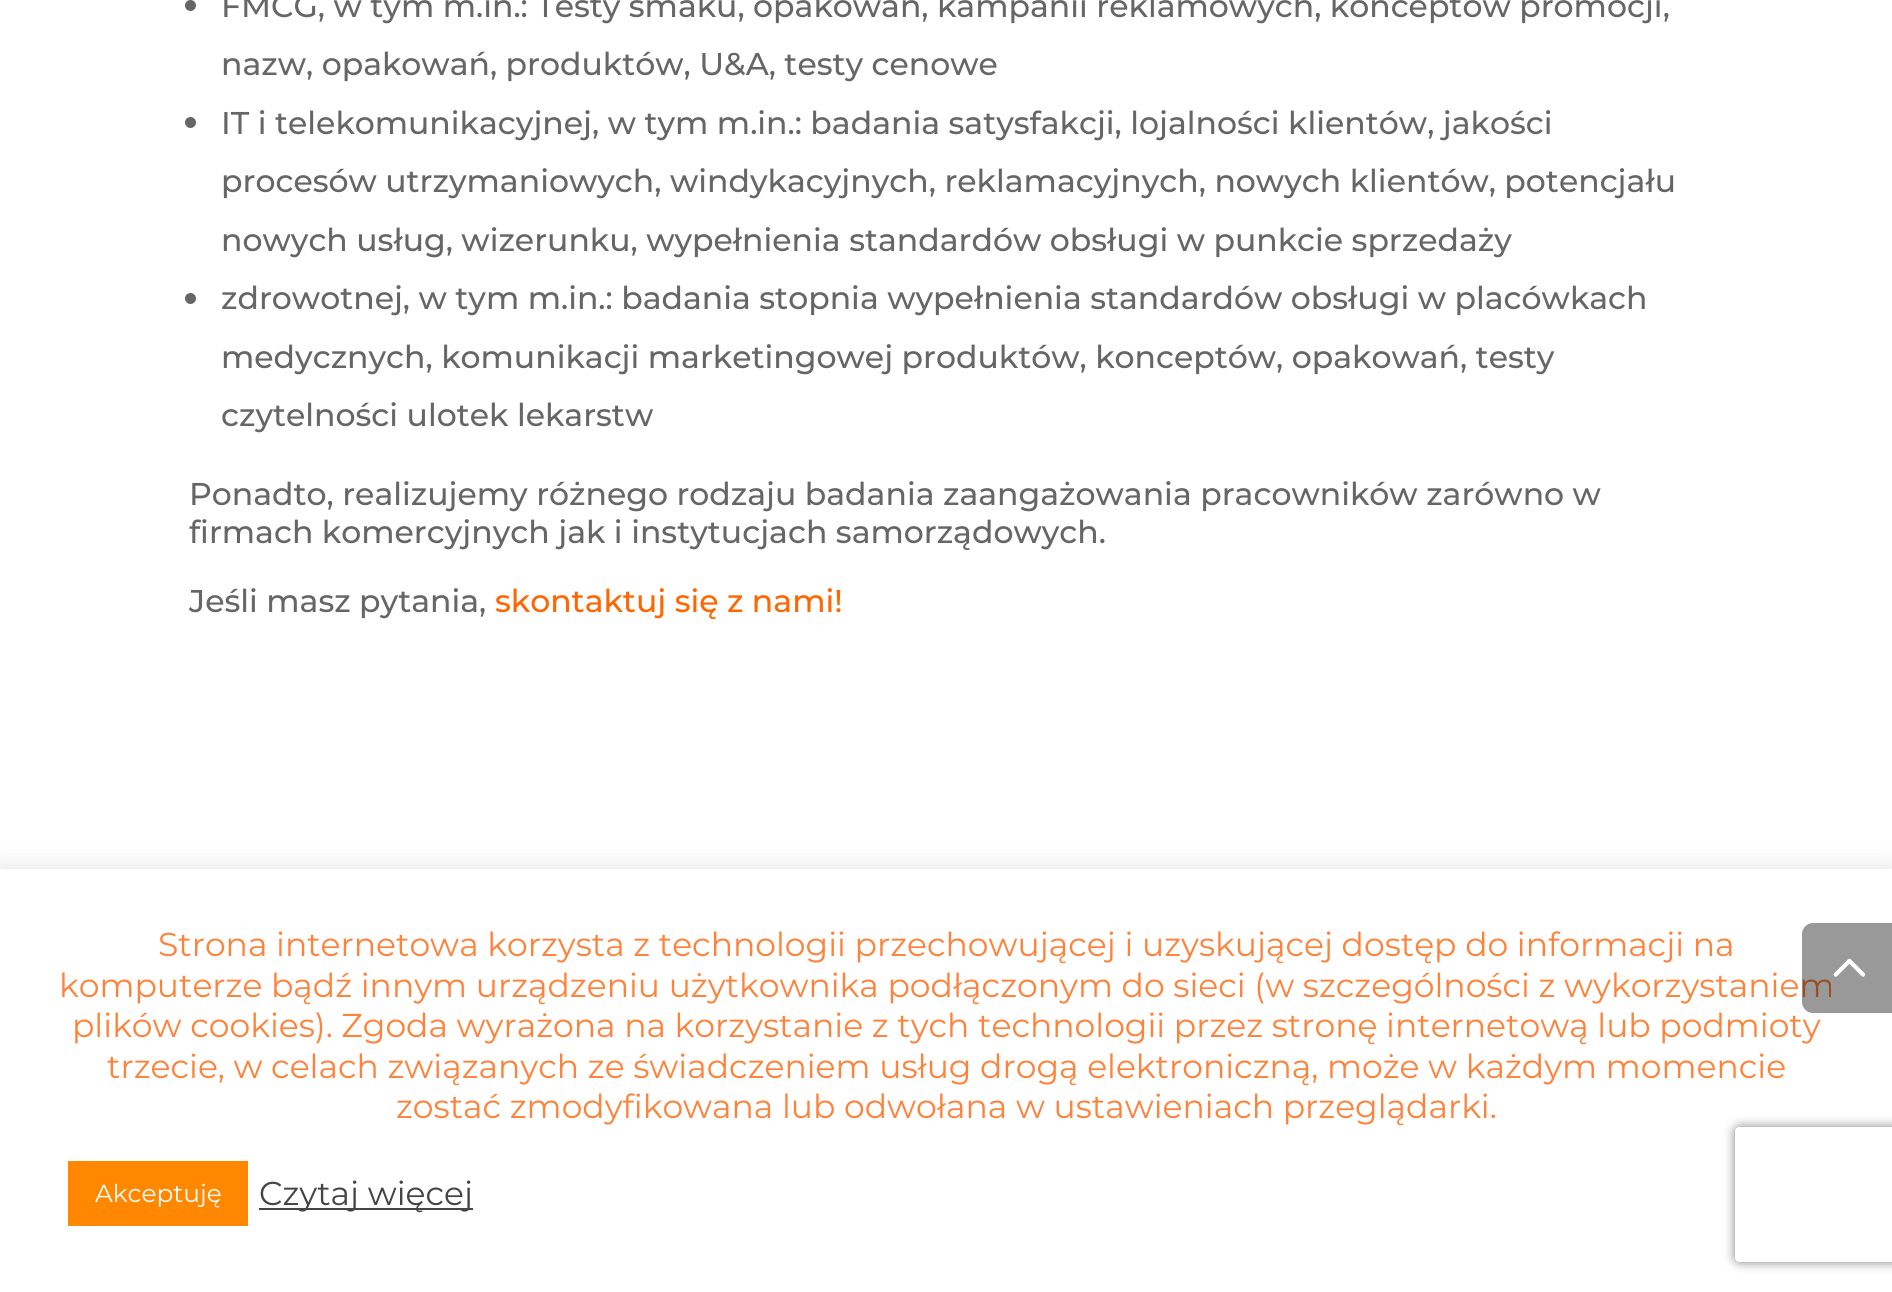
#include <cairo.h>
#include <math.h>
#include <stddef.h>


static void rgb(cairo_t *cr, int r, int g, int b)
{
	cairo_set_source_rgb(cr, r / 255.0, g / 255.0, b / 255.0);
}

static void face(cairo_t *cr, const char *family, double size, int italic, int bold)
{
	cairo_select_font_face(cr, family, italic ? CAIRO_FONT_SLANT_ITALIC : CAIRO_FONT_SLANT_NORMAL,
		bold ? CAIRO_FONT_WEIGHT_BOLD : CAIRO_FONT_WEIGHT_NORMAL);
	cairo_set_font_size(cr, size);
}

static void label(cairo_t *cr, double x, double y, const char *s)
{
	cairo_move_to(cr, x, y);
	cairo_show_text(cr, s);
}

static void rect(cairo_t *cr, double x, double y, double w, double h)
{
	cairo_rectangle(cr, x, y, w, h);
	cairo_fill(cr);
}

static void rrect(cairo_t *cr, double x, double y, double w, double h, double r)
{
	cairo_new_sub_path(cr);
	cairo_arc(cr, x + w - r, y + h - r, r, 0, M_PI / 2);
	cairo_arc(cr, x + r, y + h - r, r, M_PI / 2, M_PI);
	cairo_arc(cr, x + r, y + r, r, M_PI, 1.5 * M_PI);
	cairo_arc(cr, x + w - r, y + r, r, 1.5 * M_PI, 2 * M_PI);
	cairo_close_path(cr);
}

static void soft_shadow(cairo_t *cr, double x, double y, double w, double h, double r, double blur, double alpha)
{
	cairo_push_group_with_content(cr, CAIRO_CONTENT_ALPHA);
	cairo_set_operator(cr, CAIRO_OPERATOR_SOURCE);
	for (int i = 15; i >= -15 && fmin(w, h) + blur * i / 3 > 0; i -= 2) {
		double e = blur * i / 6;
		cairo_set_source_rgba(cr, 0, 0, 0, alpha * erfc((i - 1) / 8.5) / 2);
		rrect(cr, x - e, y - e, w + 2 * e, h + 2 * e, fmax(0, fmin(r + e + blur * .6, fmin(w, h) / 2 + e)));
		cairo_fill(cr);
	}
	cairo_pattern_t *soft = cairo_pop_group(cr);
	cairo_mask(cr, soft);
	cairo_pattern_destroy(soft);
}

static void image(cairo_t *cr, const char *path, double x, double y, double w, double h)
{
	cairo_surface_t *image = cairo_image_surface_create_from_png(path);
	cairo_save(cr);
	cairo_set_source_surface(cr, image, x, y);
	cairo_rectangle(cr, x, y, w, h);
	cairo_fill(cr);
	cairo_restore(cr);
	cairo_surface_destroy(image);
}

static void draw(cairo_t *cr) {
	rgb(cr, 255, 255, 255);
	cairo_paint(cr);
	rgb(cr, 102, 102, 102);
	cairo_arc(cr, 190.5, 5.5, 5.5, 0, 2 * M_PI);
	cairo_fill(cr);
	face(cr, "Montserrat Medium", 31.5, 0, 0);
	label(cr, 221, 17, "FMCG, w tym m.in.: Testy smaku, opakowań, kampanii reklamowych, konceptów promocji,");
	label(cr, 221, 75, "nazw, opakowań, produktów, U&A, testy cenowe");
	cairo_new_path(cr);
	cairo_arc(cr, 190.5, 122.5, 5.5, 0, 2 * M_PI);
	cairo_fill(cr);
	label(cr, 221, 134, "IT i telekomunikacyjnej, w tym m.in.: badania satysfakcji, lojalności klientów, jakości");
	label(cr, 221, 192, "procesów utrzymaniowych, windykacyjnych, reklamacyjnych, nowych klientów, potencjału");
	label(cr, 221, 251, "nowych usług, wizerunku, wypełnienia standardów obsługi w punkcie sprzedaży");
	cairo_new_path(cr);
	cairo_arc(cr, 190.5, 298.5, 5.5, 0, 2 * M_PI);
	cairo_fill(cr);
	label(cr, 221, 309, "zdrowotnej, w tym m.in.: badania stopnia wypełnienia standardów obsługi w placówkach");
	label(cr, 221, 368, "medycznych, komunikacji marketingowej produktów, konceptów, opakowań, testy");
	label(cr, 221, 426, "czytelności ulotek lekarstw");
	label(cr, 189, 505, "Ponadto, realizujemy różnego rodzaju badania zaangażowania pracowników zarówno w");
	label(cr, 189, 543, "firmach komercyjnych jak i instytucjach samorządowych.");
	label(cr, 189, 612, "Jeśli masz pytania,");
	rgb(cr, 255, 102, 0);
	label(cr, 495, 612, "skontaktuj się z nami!");
	rgb(cr, 172, 171, 171);
	soft_shadow(cr, 0, 866, 1892, 426, 0, 11, 0.3);
	rgb(cr, 255, 255, 255);
	rect(cr, 0, 869, 1892, 423);
	face(cr, "Montserrat", 33, 0, 0);
	rgb(cr, 255, 130, 58);
	label(cr, 59, 997, "komputerze bądź innym urządzeniu użytkownika podłączonym do sieci (w szczególności z wykorzystaniem");
	label(cr, 72, 1037, "plików cookies). Zgoda wyrażona na korzystanie z tych technologii przez stronę internetową lub podmioty");
	cairo_set_source_rgba(cr, 0, 0, 0, 0.4);
	cairo_new_path(cr);
	cairo_move_to(cr, 1813, 923);
	cairo_line_to(cr, 1892, 923);
	cairo_line_to(cr, 1892, 1013);
	cairo_line_to(cr, 1813, 1013);
	cairo_curve_to(cr, 1807, 1013, 1802, 1008, 1802, 1002);
	cairo_line_to(cr, 1802, 934);
	cairo_curve_to(cr, 1802, 928, 1807, 923, 1813, 923);
	cairo_close_path(cr);
	cairo_fill(cr);
	image(cr, "image0.png", 1833, 958, 33, 19);
	rgb(cr, 255, 130, 58);
	label(cr, 158, 956, "Strona internetowa korzysta z technologii przechowującej i uzyskującej dostęp do informacji na");
	label(cr, 107, 1078, "trzecie, w celach związanych ze świadczeniem usług drogą elektroniczną, może w każdym momencie");
	label(cr, 396, 1118, "zostać zmodyfikowana lub odwołana w ustawieniach przeglądarki.");
	rgb(cr, 255, 136, 0);
	rect(cr, 68, 1161, 180, 65);
	face(cr, "Montserrat", 24.75, 0, 0);
	rgb(cr, 255, 255, 255);
	label(cr, 95, 1202, "Akceptuję");
	rgb(cr, 68, 68, 68);
	rect(cr, 259, 1208, 214, 2);
	face(cr, "Montserrat", 33, 0, 0);
	label(cr, 259, 1205, "Czytaj więcej");
	cairo_save(cr);
	cairo_set_fill_rule(cr, CAIRO_FILL_RULE_EVEN_ODD);
	cairo_new_path(cr);
	cairo_move_to(cr, 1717, 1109);
	cairo_line_to(cr, 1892, 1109);
	cairo_line_to(cr, 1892, 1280);
	cairo_line_to(cr, 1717, 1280);
	cairo_close_path(cr);
	cairo_move_to(cr, 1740, 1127);
	cairo_line_to(cr, 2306, 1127);
	cairo_curve_to(cr, 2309, 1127, 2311, 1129, 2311, 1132);
	cairo_line_to(cr, 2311, 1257);
	cairo_curve_to(cr, 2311, 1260, 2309, 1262, 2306, 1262);
	cairo_line_to(cr, 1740, 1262);
	cairo_curve_to(cr, 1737, 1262, 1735, 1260, 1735, 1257);
	cairo_line_to(cr, 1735, 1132);
	cairo_curve_to(cr, 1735, 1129, 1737, 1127, 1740, 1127);
	cairo_close_path(cr);
	cairo_clip(cr);
	rgb(cr, 128, 128, 128);
	soft_shadow(cr, 1735, 1127, 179, 135, 5, 5.5, 1);
	cairo_restore(cr);
}

int main(void) {
	cairo_surface_t *surface = cairo_image_surface_create(CAIRO_FORMAT_RGB24, 1892, 1292);
	cairo_t *cr = cairo_create(surface);
	cairo_font_options_t *options = cairo_font_options_create();
	cairo_font_options_set_hint_metrics(options, CAIRO_HINT_METRICS_OFF);
	cairo_font_options_set_hint_style(options, CAIRO_HINT_STYLE_NONE);
	cairo_set_font_options(cr, options);
	cairo_set_miter_limit(cr, 4);
	draw(cr);
	cairo_surface_write_to_png(surface, "render.png");
	cairo_font_options_destroy(options);
	cairo_destroy(cr);
	cairo_surface_destroy(surface);
	return 0;
}
